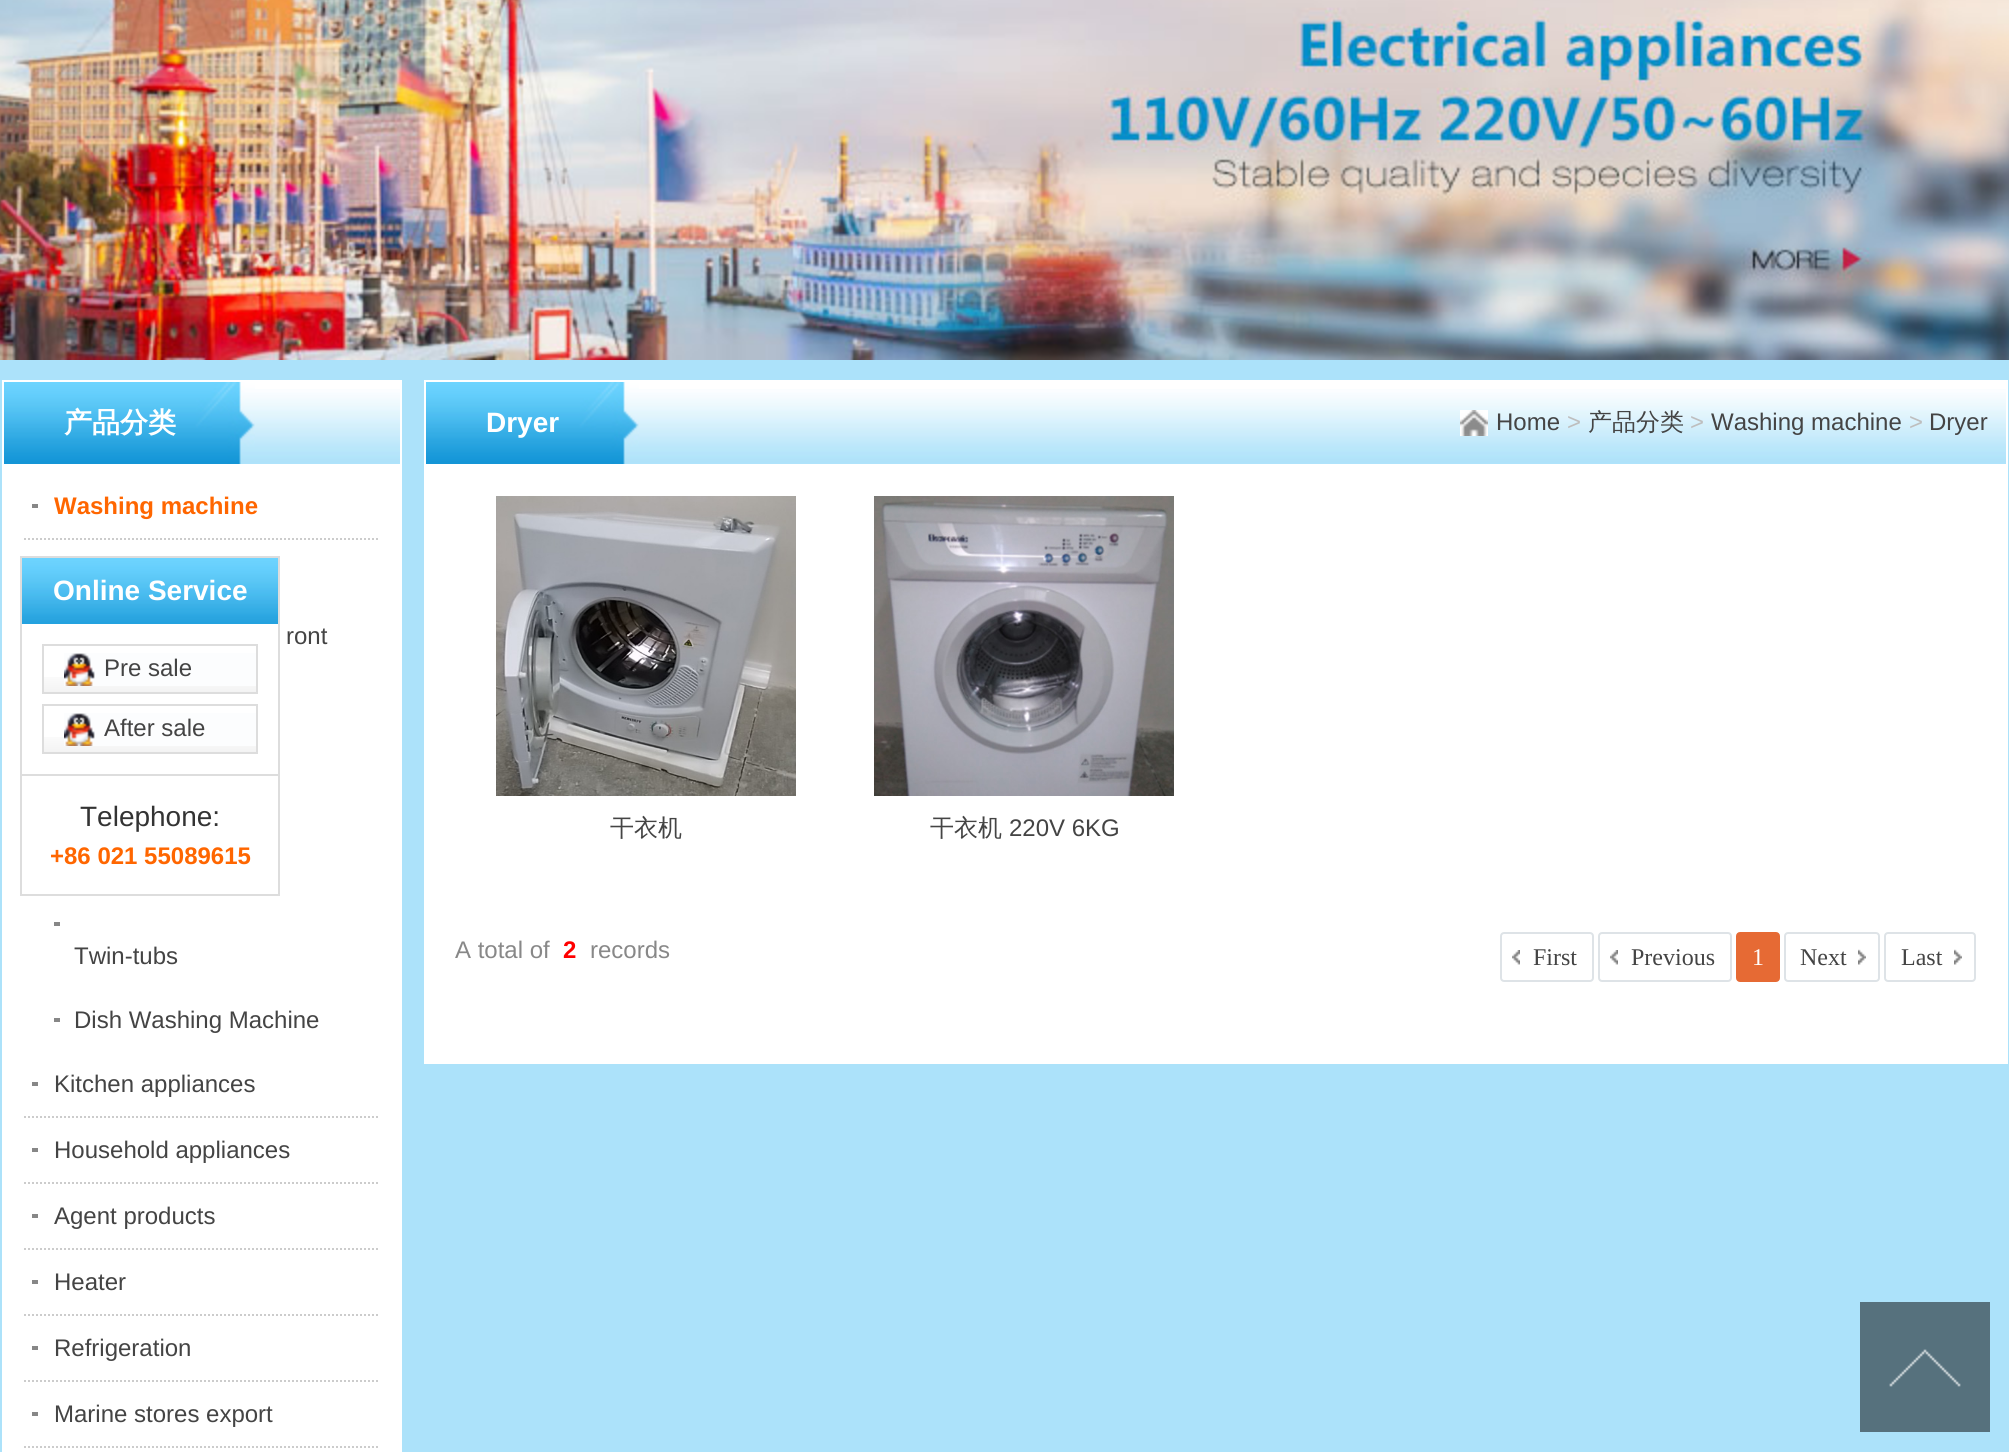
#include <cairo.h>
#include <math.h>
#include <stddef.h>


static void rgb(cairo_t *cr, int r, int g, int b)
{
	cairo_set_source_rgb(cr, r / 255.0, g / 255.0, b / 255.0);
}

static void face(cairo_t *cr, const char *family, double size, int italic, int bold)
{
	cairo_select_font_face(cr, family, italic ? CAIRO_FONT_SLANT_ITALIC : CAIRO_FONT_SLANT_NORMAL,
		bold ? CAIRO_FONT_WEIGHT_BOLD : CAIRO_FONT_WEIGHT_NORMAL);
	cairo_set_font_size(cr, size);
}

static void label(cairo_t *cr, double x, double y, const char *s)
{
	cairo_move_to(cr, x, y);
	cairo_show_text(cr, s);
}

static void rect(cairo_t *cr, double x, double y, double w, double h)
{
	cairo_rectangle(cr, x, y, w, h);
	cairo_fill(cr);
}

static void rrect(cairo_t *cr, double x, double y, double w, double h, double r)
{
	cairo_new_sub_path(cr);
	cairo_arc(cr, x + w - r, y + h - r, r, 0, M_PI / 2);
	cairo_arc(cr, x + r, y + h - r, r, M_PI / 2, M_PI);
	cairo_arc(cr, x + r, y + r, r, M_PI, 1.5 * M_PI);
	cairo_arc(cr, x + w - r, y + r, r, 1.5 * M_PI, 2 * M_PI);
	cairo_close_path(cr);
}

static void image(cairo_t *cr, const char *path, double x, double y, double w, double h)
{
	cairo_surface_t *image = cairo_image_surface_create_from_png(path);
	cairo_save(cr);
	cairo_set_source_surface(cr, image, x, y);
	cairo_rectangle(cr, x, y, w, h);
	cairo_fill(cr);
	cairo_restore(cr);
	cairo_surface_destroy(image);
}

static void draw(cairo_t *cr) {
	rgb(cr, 172, 226, 250);
	cairo_paint(cr);
	image(cr, "image0.png", 0, 0, 2009, 360);
	rgb(cr, 255, 255, 255);
	rect(cr, 2, 380, 400, 1072);
	image(cr, "image1.png", 255, 389, 145, 75);
	image(cr, "image2.png", 4, 382, 251, 82);
	face(cr, "WenQuanYi Zen Hei", 28, 0, 1);
	label(cr, 64, 432, "产品分类");
	cairo_new_path(cr);
	cairo_move_to(cr, 24, 539);
	cairo_line_to(cr, 380, 539);
	rgb(cr, 204, 204, 204);
	cairo_set_dash(cr, (double[]){2, 2}, 2, 0);
	cairo_stroke(cr);
	rgb(cr, 135, 135, 135);
	rect(cr, 32, 504, 6, 4);
	face(cr, "Liberation Sans", 24, 0, 1);
	rgb(cr, 255, 102, 0);
	label(cr, 54, 514, "Washing machine");
	face(cr, "Liberation Sans", 24, 0, 0);
	rgb(cr, 68, 68, 68);
	label(cr, 286, 644, "ront");
	rgb(cr, 135, 135, 135);
	rect(cr, 54, 922, 6, 4);
	rgb(cr, 68, 68, 68);
	label(cr, 74, 964, "Twin-tubs");
	rgb(cr, 135, 135, 135);
	rect(cr, 54, 1018, 6, 4);
	rgb(cr, 68, 68, 68);
	label(cr, 74, 1028, "Dish Washing Machine");
	cairo_new_path(cr);
	cairo_move_to(cr, 24, 1117);
	cairo_line_to(cr, 380, 1117);
	rgb(cr, 204, 204, 204);
	cairo_stroke(cr);
	rgb(cr, 135, 135, 135);
	rect(cr, 32, 1082, 6, 4);
	rgb(cr, 68, 68, 68);
	label(cr, 54, 1092, "Kitchen appliances");
	cairo_new_path(cr);
	cairo_move_to(cr, 24, 1183);
	cairo_line_to(cr, 380, 1183);
	rgb(cr, 204, 204, 204);
	cairo_stroke(cr);
	rgb(cr, 135, 135, 135);
	rect(cr, 32, 1148, 6, 4);
	rgb(cr, 68, 68, 68);
	label(cr, 54, 1158, "Household appliances");
	cairo_new_path(cr);
	cairo_move_to(cr, 24, 1249);
	cairo_line_to(cr, 380, 1249);
	rgb(cr, 204, 204, 204);
	cairo_stroke(cr);
	rgb(cr, 135, 135, 135);
	rect(cr, 32, 1214, 6, 4);
	rgb(cr, 68, 68, 68);
	label(cr, 54, 1224, "Agent products");
	cairo_new_path(cr);
	cairo_move_to(cr, 24, 1315);
	cairo_line_to(cr, 380, 1315);
	rgb(cr, 204, 204, 204);
	cairo_stroke(cr);
	rgb(cr, 135, 135, 135);
	rect(cr, 32, 1280, 6, 4);
	rgb(cr, 68, 68, 68);
	label(cr, 54, 1290, "Heater");
	cairo_new_path(cr);
	cairo_move_to(cr, 24, 1381);
	cairo_line_to(cr, 380, 1381);
	rgb(cr, 204, 204, 204);
	cairo_stroke(cr);
	rgb(cr, 135, 135, 135);
	rect(cr, 32, 1346, 6, 4);
	rgb(cr, 68, 68, 68);
	label(cr, 54, 1356, "Refrigeration");
	cairo_new_path(cr);
	cairo_move_to(cr, 24, 1447);
	cairo_line_to(cr, 380, 1447);
	rgb(cr, 204, 204, 204);
	cairo_stroke(cr);
	rgb(cr, 135, 135, 135);
	rect(cr, 32, 1412, 6, 4);
	rgb(cr, 68, 68, 68);
	label(cr, 54, 1422, "Marine stores export");
	rgb(cr, 255, 255, 255);
	rect(cr, 424, 380, 1584, 684);
	image(cr, "image4.png", 639, 389, 1367, 75);
	image(cr, "image3.png", 1460, 410, 28, 26);
	rgb(cr, 68, 68, 68);
	label(cr, 1496, 430, "Home");
	rgb(cr, 190, 190, 190);
	label(cr, 1567, 430, ">");
	face(cr, "WenQuanYi Zen Hei Medium", 24, 0, 0);
	rgb(cr, 68, 68, 68);
	label(cr, 1588, 430, "产品分类");
	face(cr, "Liberation Sans", 24, 0, 0);
	rgb(cr, 190, 190, 190);
	label(cr, 1690, 430, ">");
	rgb(cr, 68, 68, 68);
	label(cr, 1711, 430, "Washing machine");
	rgb(cr, 190, 190, 190);
	label(cr, 1909, 430, ">");
	rgb(cr, 68, 68, 68);
	label(cr, 1929, 430, "Dryer");
	image(cr, "image5.png", 426, 382, 213, 82);
	face(cr, "Liberation Sans", 28, 0, 1);
	rgb(cr, 255, 255, 255);
	label(cr, 486, 432, "Dryer");
	image(cr, "image6.png", 496, 496, 300, 300);
	face(cr, "WenQuanYi Zen Hei Medium", 24, 0, 0);
	rgb(cr, 68, 68, 68);
	label(cr, 610, 836, "干衣机");
	image(cr, "image7.png", 874, 496, 300, 300);
	label(cr, 930, 836, "干衣机");
	face(cr, "Liberation Sans", 24, 0, 0);
	label(cr, 1009, 836, "220V 6KG");
	rgb(cr, 136, 136, 136);
	label(cr, 455, 958, "A total of");
	face(cr, "Liberation Sans", 24, 0, 1);
	rgb(cr, 255, 0, 0);
	label(cr, 563, 958, "2");
	face(cr, "Liberation Sans", 24, 0, 0);
	rgb(cr, 136, 136, 136);
	label(cr, 590, 958, "records");
	image(cr, "image8.png", 1512, 950, 8, 15);
	rrect(cr, 1501, 933, 92, 48, 3);
	rgb(cr, 222, 227, 231);
	cairo_set_dash(cr, NULL, 0, 0);
	cairo_stroke(cr);
	face(cr, "Liberation Serif", 24, 0, 0);
	rgb(cr, 68, 68, 68);
	label(cr, 1533, 965, "First");
	image(cr, "image8.png", 1610, 950, 8, 15);
	rrect(cr, 1599, 933, 132, 48, 3);
	rgb(cr, 222, 227, 231);
	cairo_stroke(cr);
	rgb(cr, 68, 68, 68);
	label(cr, 1631, 965, "Previous");
	rgb(cr, 230, 106, 52);
	rrect(cr, 1737, 933, 42, 48, 3);
	cairo_fill_preserve(cr);
	cairo_stroke(cr);
	rgb(cr, 255, 255, 255);
	label(cr, 1752, 965, "1");
	image(cr, "image9.png", 1858, 949, 8, 16);
	rrect(cr, 1785, 933, 94, 48, 3);
	rgb(cr, 222, 227, 231);
	cairo_stroke(cr);
	rgb(cr, 68, 68, 68);
	label(cr, 1800, 965, "Next");
	image(cr, "image9.png", 1954, 949, 8, 16);
	rrect(cr, 1885, 933, 90, 48, 3);
	rgb(cr, 222, 227, 231);
	cairo_stroke(cr);
	rgb(cr, 68, 68, 68);
	label(cr, 1901, 965, "Last");
	image(cr, "image10.png", 1860, 1302, 130, 130);
	image(cr, "image11.png", 22, 558, 256, 66);
	rgb(cr, 221, 221, 221);
	rect(cr, 20, 556, 260, 2);
	rect(cr, 278, 556, 2, 340);
	rect(cr, 20, 556, 2, 68);
	face(cr, "Liberation Sans", 28, 0, 1);
	rgb(cr, 255, 255, 255);
	label(cr, 53, 600, "Online Service");
	rgb(cr, 221, 221, 221);
	rect(cr, 20, 774, 260, 2);
	rect(cr, 20, 624, 2, 152);
	image(cr, "image12.png", 44, 677, 212, 15);
	image(cr, "image13.png", 64, 653, 192, 33);
	cairo_rectangle(cr, 43, 645, 214, 48);
	cairo_stroke(cr);
	face(cr, "Liberation Sans", 24, 0, 0);
	rgb(cr, 68, 68, 68);
	label(cr, 104, 676, "Pre sale");
	image(cr, "image12.png", 44, 737, 212, 15);
	image(cr, "image13.png", 64, 713, 192, 33);
	cairo_rectangle(cr, 43, 705, 214, 48);
	rgb(cr, 221, 221, 221);
	cairo_stroke(cr);
	rgb(cr, 68, 68, 68);
	label(cr, 104, 736, "After sale");
	rgb(cr, 221, 221, 221);
	rect(cr, 20, 894, 260, 2);
	rect(cr, 20, 776, 2, 120);
	face(cr, "Liberation Sans", 28, 0, 0);
	rgb(cr, 51, 51, 51);
	label(cr, 80, 826, "Telephone:");
	face(cr, "Liberation Sans", 24, 0, 1);
	rgb(cr, 255, 102, 0);
	label(cr, 50, 864, "+86 021 55089615");
}

int main(void) {
	cairo_surface_t *surface = cairo_image_surface_create(CAIRO_FORMAT_RGB24, 2009, 1452);
	cairo_t *cr = cairo_create(surface);
	cairo_font_options_t *options = cairo_font_options_create();
	cairo_font_options_set_hint_metrics(options, CAIRO_HINT_METRICS_OFF);
	cairo_font_options_set_hint_style(options, CAIRO_HINT_STYLE_NONE);
	cairo_set_font_options(cr, options);
	cairo_set_miter_limit(cr, 4);
	draw(cr);
	cairo_surface_write_to_png(surface, "render.png");
	cairo_font_options_destroy(options);
	cairo_destroy(cr);
	cairo_surface_destroy(surface);
	return 0;
}
